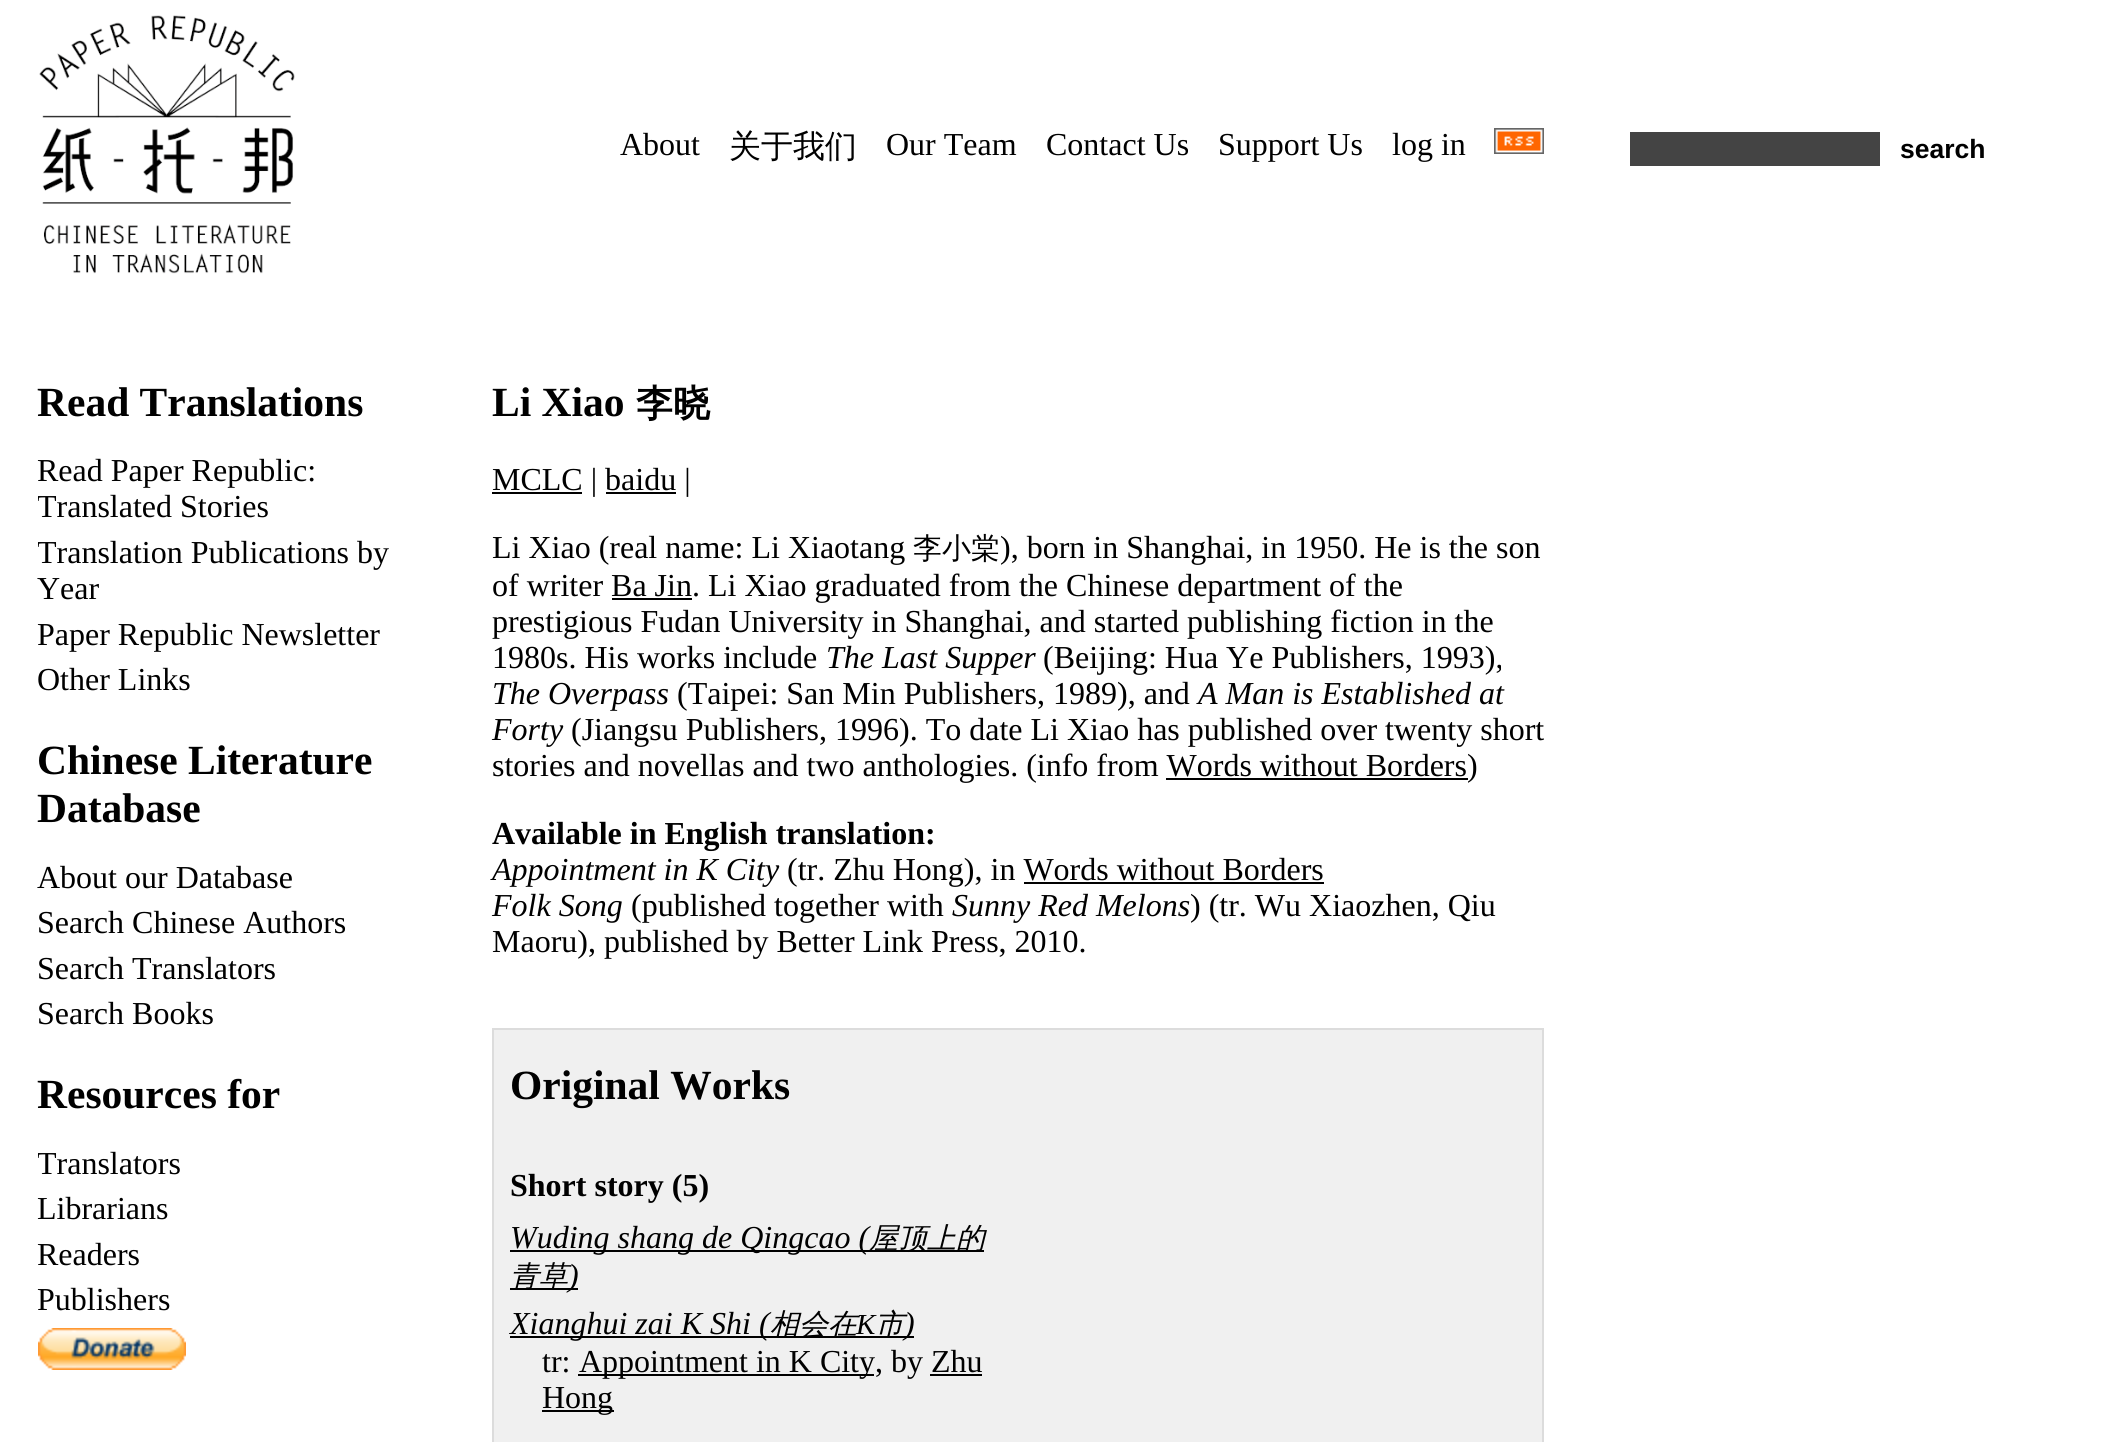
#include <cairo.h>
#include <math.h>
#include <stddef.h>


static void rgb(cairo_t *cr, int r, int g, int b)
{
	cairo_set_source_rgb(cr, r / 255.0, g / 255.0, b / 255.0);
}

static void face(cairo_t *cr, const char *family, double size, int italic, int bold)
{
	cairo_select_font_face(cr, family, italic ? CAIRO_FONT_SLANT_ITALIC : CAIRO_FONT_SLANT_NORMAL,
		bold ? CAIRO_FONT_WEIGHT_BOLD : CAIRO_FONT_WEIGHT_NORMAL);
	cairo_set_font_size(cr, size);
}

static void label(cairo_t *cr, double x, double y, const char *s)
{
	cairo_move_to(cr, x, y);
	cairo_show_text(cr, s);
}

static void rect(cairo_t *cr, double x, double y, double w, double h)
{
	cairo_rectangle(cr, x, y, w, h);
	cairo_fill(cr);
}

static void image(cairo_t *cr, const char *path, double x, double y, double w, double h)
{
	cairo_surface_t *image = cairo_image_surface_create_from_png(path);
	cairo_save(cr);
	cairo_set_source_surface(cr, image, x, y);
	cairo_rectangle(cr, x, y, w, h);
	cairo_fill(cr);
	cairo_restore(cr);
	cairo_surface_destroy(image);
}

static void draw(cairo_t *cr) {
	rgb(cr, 255, 255, 255);
	cairo_paint(cr);
	image(cr, "image0.png", 39, 15, 256, 259);
	face(cr, "Liberation Serif", 32, 0, 0);
	rgb(cr, 0, 0, 0);
	label(cr, 620, 155, "About");
	face(cr, "WenQuanYi Zen Hei Medium", 32, 0, 0);
	label(cr, 729, 157, "关于我们");
	face(cr, "Liberation Serif", 32, 0, 0);
	label(cr, 886, 155, "Our Team");
	label(cr, 1046, 155, "Contact Us");
	label(cr, 1218, 155, "Support Us");
	label(cr, 1392, 155, "log in");
	image(cr, "image1.png", 1494, 128, 50, 26);
	rgb(cr, 68, 68, 68);
	rect(cr, 1630, 132, 250, 34);
	face(cr, "Liberation Sans", 26.5, 0, 1);
	rgb(cr, 0, 0, 0);
	label(cr, 1900, 158, "search");
	face(cr, "Liberation Serif", 41.5, 0, 1);
	label(cr, 37, 416, "Read Translations");
	face(cr, "Liberation Serif", 32, 0, 0);
	label(cr, 37, 481, "Read Paper Republic:");
	cairo_save(cr);
	cairo_rectangle(cr, 38, 350, 454, 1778);
	cairo_clip(cr);
	label(cr, 37, 517, "Translated Stories");
	label(cr, 37, 563, "Translation Publications by");
	cairo_restore(cr);
	label(cr, 37, 599, "Year");
	label(cr, 37, 645, "Paper Republic Newsletter");
	label(cr, 37, 690, "Other Links");
	face(cr, "Liberation Serif", 41.5, 0, 1);
	label(cr, 37, 774, "Chinese Literature");
	label(cr, 37, 822, "Database");
	face(cr, "Liberation Serif", 32, 0, 0);
	label(cr, 37, 888, "About our Database");
	label(cr, 37, 933, "Search Chinese Authors");
	label(cr, 37, 979, "Search Translators");
	label(cr, 37, 1024, "Search Books");
	face(cr, "Liberation Serif", 41.5, 0, 1);
	label(cr, 37, 1108, "Resources for");
	cairo_save(cr);
	cairo_rectangle(cr, 38, 350, 454, 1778);
	cairo_clip(cr);
	face(cr, "Liberation Serif", 32, 0, 0);
	label(cr, 37, 1174, "Translators");
	cairo_restore(cr);
	face(cr, "Liberation Serif", 32, 0, 0);
	label(cr, 37, 1219, "Librarians");
	label(cr, 37, 1265, "Readers");
	label(cr, 37, 1310, "Publishers");
	image(cr, "image2.png", 38, 1328, 148, 42);
	face(cr, "Liberation Serif", 41.5, 0, 1);
	label(cr, 492, 416, "Li Xiao");
	face(cr, "WenQuanYi Zen Hei", 37, 0, 1);
	label(cr, 636, 416, "李晓");
	rect(cr, 492, 492, 90, 2);
	face(cr, "Liberation Serif", 32, 0, 0);
	label(cr, 492, 490, "MCLC | baidu |");
	rect(cr, 606, 492, 70, 2);
	label(cr, 492, 558, "Li Xiao (real name: Li Xiaotang");
	face(cr, "WenQuanYi Zen Hei Medium", 29, 0, 0);
	label(cr, 913, 558, "李小棠");
	face(cr, "Liberation Serif", 32, 0, 0);
	label(cr, 1000, 558, "), born in Shanghai, in 1950. He is the son");
	label(cr, 492, 596, "of writer Ba Jin. Li Xiao graduated from the Chinese department of the");
	rect(cr, 612, 598, 80, 2);
	label(cr, 492, 632, "prestigious Fudan University in Shanghai, and started publishing fiction in the");
	label(cr, 492, 668, "1980s. His works include");
	face(cr, "Liberation Serif", 32, 1, 0);
	label(cr, 826, 668, "The Last Supper");
	face(cr, "Liberation Serif", 32, 0, 0);
	label(cr, 1043, 668, "(Beijing: Hua Ye Publishers, 1993),");
	face(cr, "Liberation Serif", 32, 1, 0);
	label(cr, 492, 704, "The Overpass");
	face(cr, "Liberation Serif", 32, 0, 0);
	label(cr, 677, 704, "(Taipei: San Min Publishers, 1989), and");
	face(cr, "Liberation Serif", 32, 1, 0);
	label(cr, 1198, 704, "A Man is Established at");
	label(cr, 492, 740, "Forty");
	face(cr, "Liberation Serif", 32, 0, 0);
	label(cr, 571, 740, "(Jiangsu Publishers, 1996). To date Li Xiao has published over twenty short");
	label(cr, 492, 776, "stories and novellas and two anthologies. (info from Words without Borders)");
	rect(cr, 1166, 778, 302, 2);
	face(cr, "Liberation Serif", 32, 0, 1);
	label(cr, 492, 844, "Available in English translation:");
	face(cr, "Liberation Serif", 32, 1, 0);
	label(cr, 492, 880, "Appointment in K City");
	face(cr, "Liberation Serif", 32, 0, 0);
	label(cr, 787, 880, "(tr. Zhu Hong), in Words without Borders");
	rect(cr, 1024, 882, 300, 2);
	face(cr, "Liberation Serif", 32, 1, 0);
	label(cr, 492, 916, "Folk Song");
	face(cr, "Liberation Serif", 32, 0, 0);
	label(cr, 631, 916, "(published together with");
	face(cr, "Liberation Serif", 32, 1, 0);
	label(cr, 952, 916, "Sunny Red Melons");
	face(cr, "Liberation Serif", 32, 0, 0);
	label(cr, 1190, 916, ") (tr. Wu Xiaozhen, Qiu");
	label(cr, 492, 952, "Maoru), published by Better Link Press, 2010.");
	rgb(cr, 240, 240, 240);
	cairo_rectangle(cr, 493, 1029, 1050, 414);
	cairo_fill_preserve(cr);
	rgb(cr, 220, 220, 220);
	cairo_stroke(cr);
	face(cr, "Liberation Serif", 41.5, 0, 1);
	rgb(cr, 0, 0, 0);
	label(cr, 510, 1099, "Original Works");
	face(cr, "Liberation Serif", 32, 0, 1);
	label(cr, 510, 1196, "Short story (5)");
	rect(cr, 510, 1250, 360, 2);
	face(cr, "Liberation Serif", 32, 1, 0);
	label(cr, 510, 1248, "Wuding shang de Qingcao (");
	rect(cr, 870, 1250, 114, 2);
	face(cr, "WenQuanYi Zen Hei Medium", 29, 1, 0);
	label(cr, 869, 1248, "屋顶上的");
	rect(cr, 510, 1288, 58, 2);
	label(cr, 510, 1286, "青草");
	rect(cr, 568, 1288, 10, 2);
	face(cr, "Liberation Serif", 32, 1, 0);
	label(cr, 568, 1286, ")");
	rect(cr, 510, 1336, 260, 2);
	label(cr, 510, 1334, "Xianghui zai K Shi (");
	rect(cr, 770, 1336, 134, 2);
	face(cr, "WenQuanYi Zen Hei Medium", 29, 1, 0);
	label(cr, 770, 1334, "相会在");
	label(cr, 875, 1334, "市");
	face(cr, "Liberation Serif", 29, 1, 0);
	label(cr, 856, 1334, "K");
	rect(cr, 904, 1336, 10, 2);
	face(cr, "Liberation Serif", 32, 1, 0);
	label(cr, 904, 1334, ")");
	face(cr, "Liberation Serif", 32, 0, 0);
	label(cr, 542, 1372, "tr:");
	rect(cr, 578, 1374, 296, 2);
	label(cr, 579, 1372, "Appointment in K City, by Zhu");
	rect(cr, 542, 1410, 72, 2);
	label(cr, 542, 1408, "Hong");
	rect(cr, 930, 1374, 52, 2);
}

int main(void) {
	cairo_surface_t *surface = cairo_image_surface_create(CAIRO_FORMAT_RGB24, 2121, 1442);
	cairo_t *cr = cairo_create(surface);
	cairo_font_options_t *options = cairo_font_options_create();
	cairo_font_options_set_hint_metrics(options, CAIRO_HINT_METRICS_OFF);
	cairo_font_options_set_hint_style(options, CAIRO_HINT_STYLE_NONE);
	cairo_set_font_options(cr, options);
	cairo_set_miter_limit(cr, 4);
	draw(cr);
	cairo_surface_write_to_png(surface, "render.png");
	cairo_font_options_destroy(options);
	cairo_destroy(cr);
	cairo_surface_destroy(surface);
	return 0;
}
